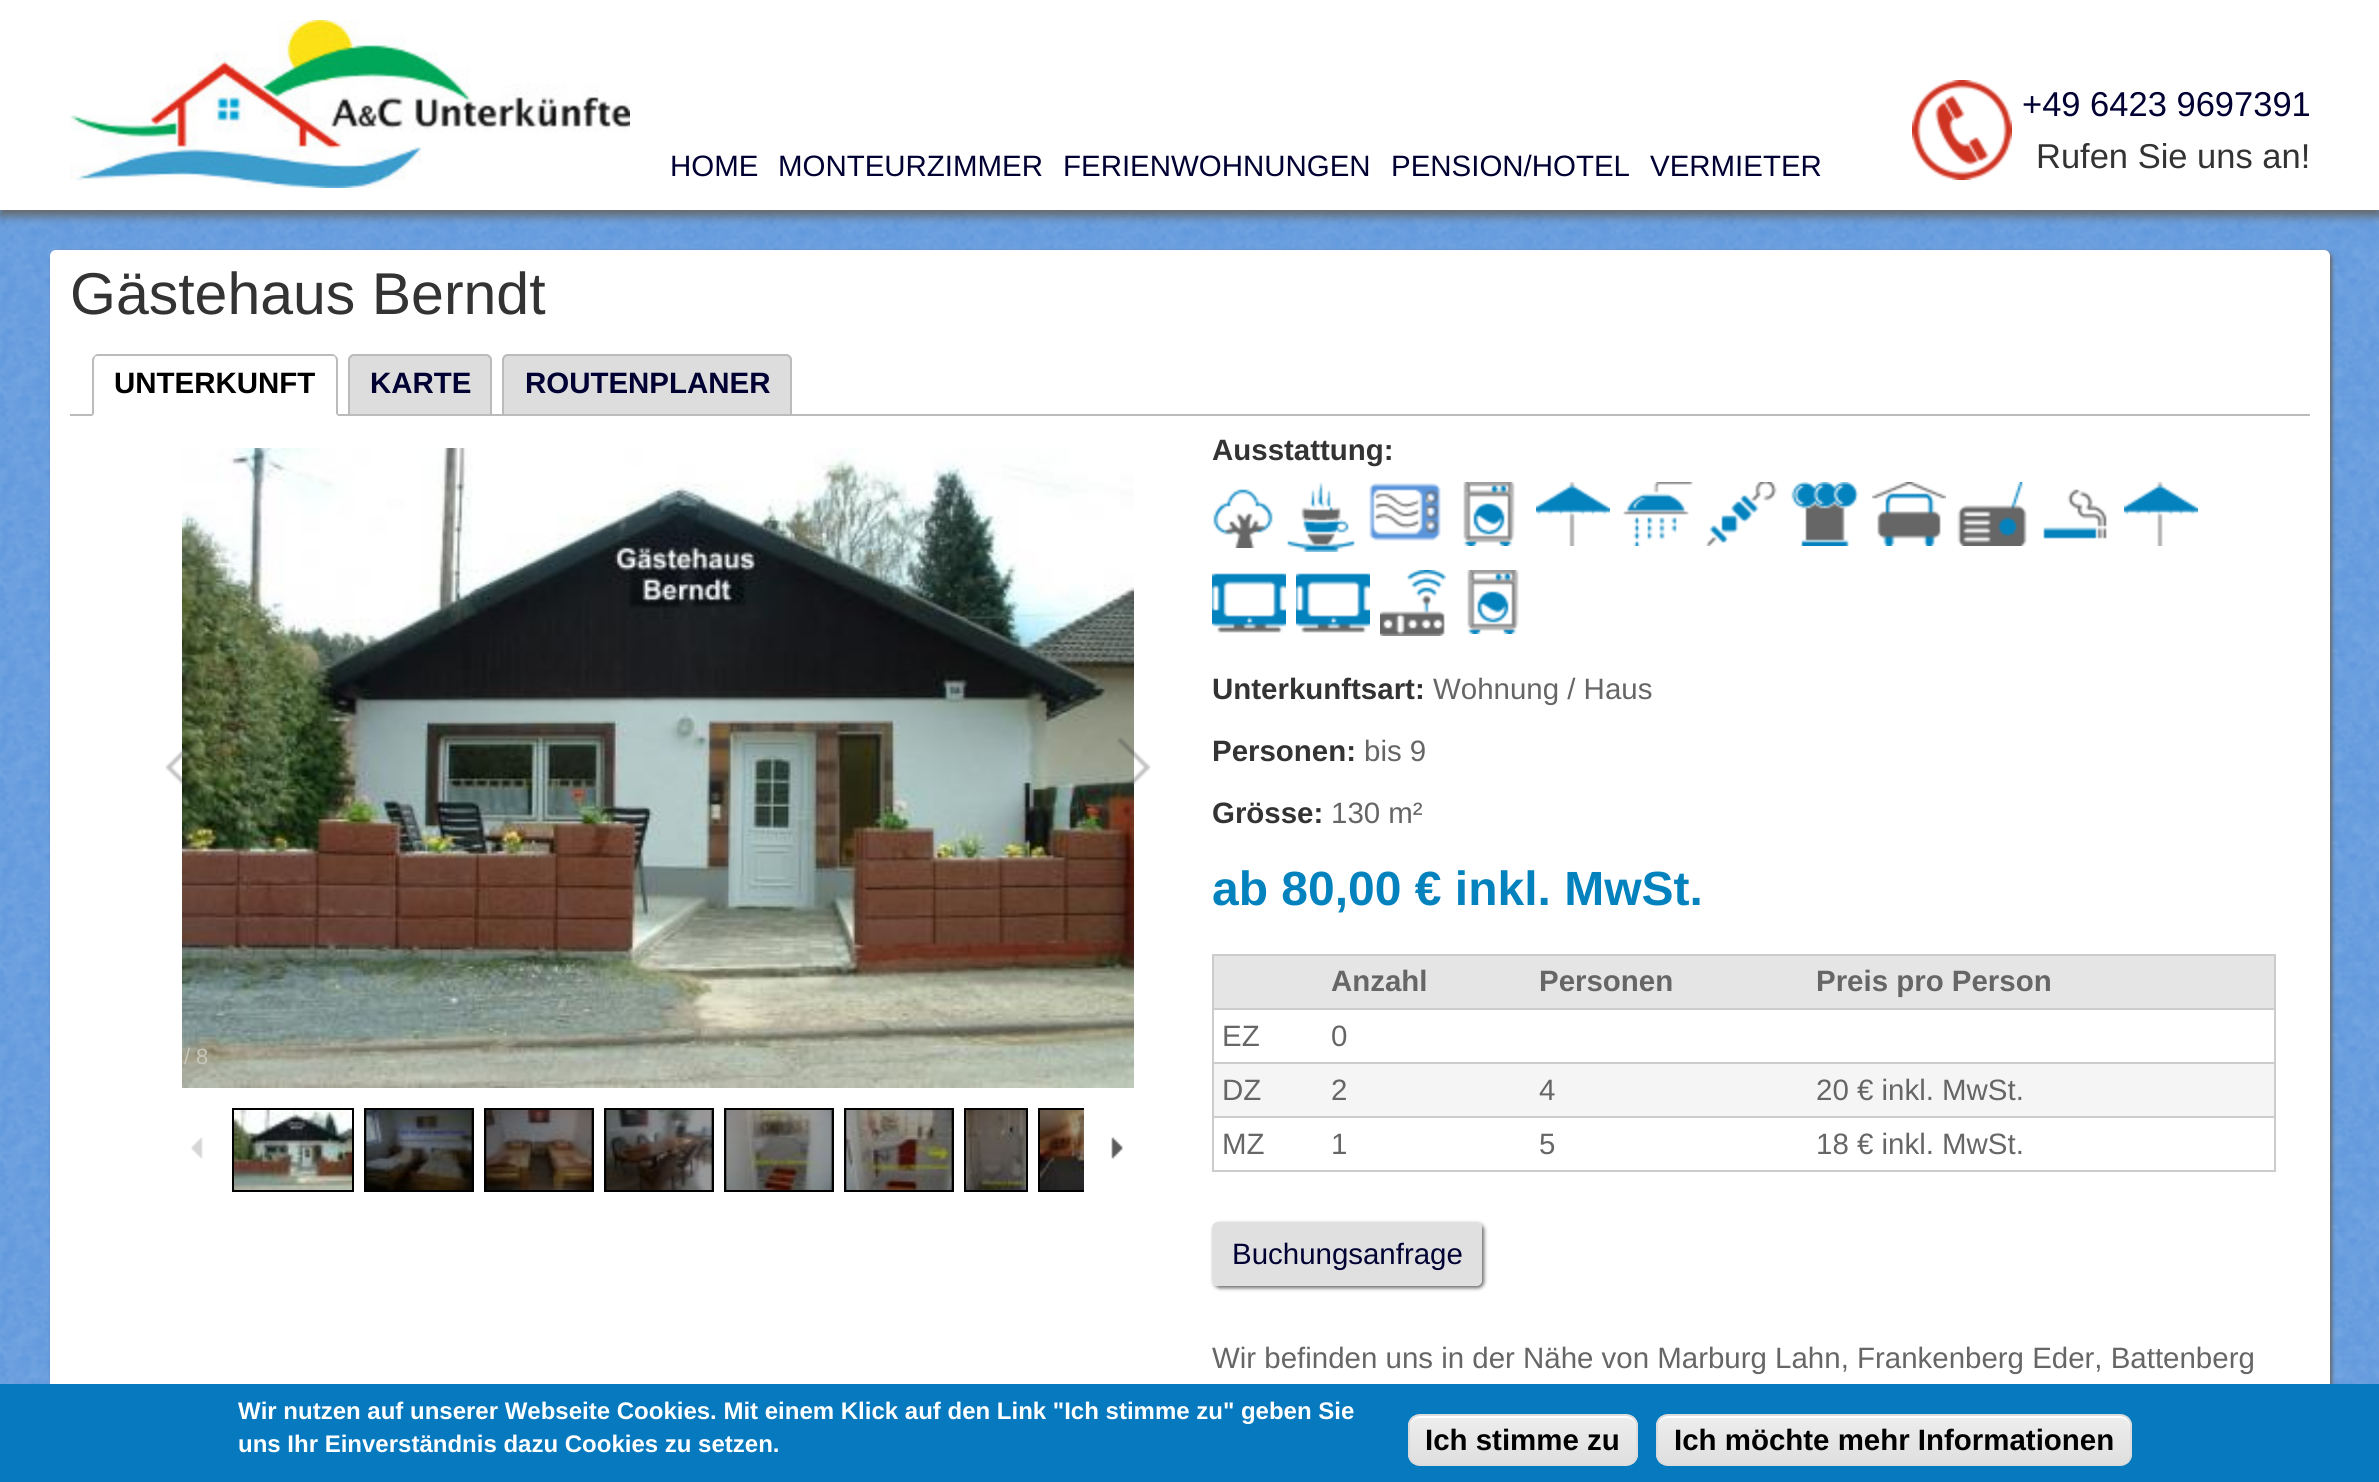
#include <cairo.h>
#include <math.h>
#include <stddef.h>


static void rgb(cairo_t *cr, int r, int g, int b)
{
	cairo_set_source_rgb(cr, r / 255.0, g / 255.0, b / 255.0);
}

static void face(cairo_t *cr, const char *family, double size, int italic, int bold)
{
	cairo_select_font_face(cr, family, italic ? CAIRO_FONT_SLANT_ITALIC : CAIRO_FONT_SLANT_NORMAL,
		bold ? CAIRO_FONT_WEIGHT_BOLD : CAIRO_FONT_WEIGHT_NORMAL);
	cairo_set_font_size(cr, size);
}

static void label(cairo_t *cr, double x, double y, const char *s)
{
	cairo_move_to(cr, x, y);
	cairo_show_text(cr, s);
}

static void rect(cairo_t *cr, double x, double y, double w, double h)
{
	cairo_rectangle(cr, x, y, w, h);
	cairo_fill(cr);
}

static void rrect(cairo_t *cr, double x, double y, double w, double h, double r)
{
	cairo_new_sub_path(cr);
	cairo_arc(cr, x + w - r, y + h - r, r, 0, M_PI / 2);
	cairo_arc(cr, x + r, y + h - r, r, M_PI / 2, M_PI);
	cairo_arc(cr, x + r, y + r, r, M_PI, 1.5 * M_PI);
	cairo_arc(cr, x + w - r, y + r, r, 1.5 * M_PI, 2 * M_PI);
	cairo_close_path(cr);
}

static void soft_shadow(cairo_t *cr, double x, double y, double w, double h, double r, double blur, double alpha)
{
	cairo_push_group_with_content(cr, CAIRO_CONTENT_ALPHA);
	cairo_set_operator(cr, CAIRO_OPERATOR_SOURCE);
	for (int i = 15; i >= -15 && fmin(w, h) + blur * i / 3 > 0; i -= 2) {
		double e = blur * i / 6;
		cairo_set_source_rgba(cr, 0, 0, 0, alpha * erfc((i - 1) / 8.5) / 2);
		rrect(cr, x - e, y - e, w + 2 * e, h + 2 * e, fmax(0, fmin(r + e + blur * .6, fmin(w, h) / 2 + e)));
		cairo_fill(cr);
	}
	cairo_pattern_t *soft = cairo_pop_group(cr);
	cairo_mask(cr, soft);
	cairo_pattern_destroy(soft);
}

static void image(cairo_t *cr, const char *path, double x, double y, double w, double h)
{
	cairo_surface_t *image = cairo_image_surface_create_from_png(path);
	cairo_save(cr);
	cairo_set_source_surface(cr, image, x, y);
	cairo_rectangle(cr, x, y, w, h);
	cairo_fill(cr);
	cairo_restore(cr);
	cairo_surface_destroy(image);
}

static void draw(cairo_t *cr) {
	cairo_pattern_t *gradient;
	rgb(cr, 255, 255, 255);
	cairo_paint(cr);
	image(cr, "image0.png", 0, 210, 2379, 1174);
	rgb(cr, 102, 102, 102);
	soft_shadow(cr, 0, 6, 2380, 210, 0, 5, 1);
	rgb(cr, 255, 255, 255);
	rect(cr, 0, 0, 2379, 210);
	image(cr, "image1.png", 70, 20, 560, 168);
	face(cr, "Liberation Sans", 29.45, 0, 0);
	rgb(cr, 0, 0, 51);
	label(cr, 670, 176, "HOME");
	label(cr, 778, 176, "MONTEURZIMMER");
	label(cr, 1063, 176, "FERIENWOHNUNGEN");
	label(cr, 1391, 176, "PENSION/HOTEL");
	label(cr, 1650, 176, "VERMIETER");
	image(cr, "image2.png", 1912, 80, 100, 100);
	face(cr, "Liberation Sans", 34.5, 0, 0);
	label(cr, 2022, 116, "+49 6423 9697391");
	rgb(cr, 51, 51, 51);
	label(cr, 2036, 168, "Rufen Sie uns an!");
	rgb(cr, 102, 102, 102);
	soft_shadow(cr, 52, 252, 2280, 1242, 6, 2, 1);
	rgb(cr, 255, 255, 255);
	rrect(cr, 50, 250, 2280, 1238, 6);
	cairo_fill(cr);
	face(cr, "Liberation Sans", 59, 0, 0);
	rgb(cr, 51, 51, 51);
	label(cr, 70, 314, "Gästehaus Berndt");
	rgb(cr, 187, 187, 187);
	rect(cr, 70, 414, 2240, 2);
	rgb(cr, 255, 255, 255);
	rect(cr, 92, 414, 246, 2);
	rgb(cr, 187, 187, 187);
	cairo_new_path(cr);
	cairo_move_to(cr, 98, 354);
	cairo_curve_to(cr, 96, 354, 95, 355, 94, 356);
	cairo_line_to(cr, 95, 357);
	cairo_curve_to(cr, 96, 356, 97, 356, 98, 356);
	cairo_line_to(cr, 332, 356);
	cairo_curve_to(cr, 333, 356, 334, 356, 335, 357);
	cairo_line_to(cr, 336, 356);
	cairo_curve_to(cr, 335, 355, 334, 354, 332, 354);
	cairo_close_path(cr);
	cairo_fill(cr);
	cairo_new_path(cr);
	cairo_move_to(cr, 338, 416);
	cairo_line_to(cr, 338, 360);
	cairo_curve_to(cr, 338, 358, 337, 357, 336, 356);
	cairo_line_to(cr, 335, 357);
	cairo_line_to(cr, 336, 360);
	cairo_line_to(cr, 336, 414);
	cairo_close_path(cr);
	cairo_fill(cr);
	rgb(cr, 255, 255, 255);
	cairo_new_path(cr);
	cairo_move_to(cr, 338, 416);
	cairo_line_to(cr, 336, 414);
	cairo_line_to(cr, 94, 414);
	cairo_line_to(cr, 92, 416);
	cairo_close_path(cr);
	cairo_fill(cr);
	rgb(cr, 187, 187, 187);
	cairo_new_path(cr);
	cairo_move_to(cr, 92, 416);
	cairo_line_to(cr, 94, 414);
	cairo_line_to(cr, 94, 360);
	cairo_line_to(cr, 95, 357);
	cairo_line_to(cr, 94, 356);
	cairo_curve_to(cr, 93, 357, 92, 358, 92, 360);
	cairo_close_path(cr);
	cairo_fill(cr);
	face(cr, "Liberation Sans", 29.45, 0, 1);
	rgb(cr, 0, 0, 0);
	label(cr, 114, 393, "UNTERKUNFT");
	rgb(cr, 221, 221, 221);
	cairo_new_path(cr);
	cairo_move_to(cr, 354, 354);
	cairo_line_to(cr, 486, 354);
	cairo_curve_to(cr, 489.5, 354, 492, 356.5, 492, 360);
	cairo_line_to(cr, 492, 414);
	cairo_line_to(cr, 348, 414);
	cairo_line_to(cr, 348, 360);
	cairo_curve_to(cr, 348, 356.5, 350.5, 354, 354, 354);
	cairo_close_path(cr);
	cairo_fill(cr);
	rgb(cr, 187, 187, 187);
	cairo_set_fill_rule(cr, CAIRO_FILL_RULE_EVEN_ODD);
	cairo_new_path(cr);
	cairo_move_to(cr, 354, 354);
	cairo_line_to(cr, 486, 354);
	cairo_curve_to(cr, 489, 354, 492, 357, 492, 360);
	cairo_line_to(cr, 492, 414);
	cairo_line_to(cr, 348, 414);
	cairo_line_to(cr, 348, 360);
	cairo_curve_to(cr, 348, 357, 351, 354, 354, 354);
	cairo_close_path(cr);
	cairo_move_to(cr, 354, 356);
	cairo_line_to(cr, 486, 356);
	cairo_curve_to(cr, 488, 356, 490, 358, 490, 360);
	cairo_line_to(cr, 490, 414);
	cairo_line_to(cr, 350, 414);
	cairo_line_to(cr, 350, 360);
	cairo_curve_to(cr, 350, 358, 352, 356, 354, 356);
	cairo_close_path(cr);
	cairo_fill(cr);
	rgb(cr, 0, 0, 51);
	label(cr, 370, 393, "KARTE");
	rgb(cr, 221, 221, 221);
	cairo_new_path(cr);
	cairo_move_to(cr, 508, 354);
	cairo_line_to(cr, 786, 354);
	cairo_curve_to(cr, 789.5, 354, 792, 356.5, 792, 360);
	cairo_line_to(cr, 792, 414);
	cairo_line_to(cr, 502, 414);
	cairo_line_to(cr, 502, 360);
	cairo_curve_to(cr, 502, 356.5, 504.5, 354, 508, 354);
	cairo_close_path(cr);
	cairo_fill(cr);
	rgb(cr, 187, 187, 187);
	cairo_new_path(cr);
	cairo_move_to(cr, 508, 354);
	cairo_line_to(cr, 786, 354);
	cairo_curve_to(cr, 789, 354, 792, 357, 792, 360);
	cairo_line_to(cr, 792, 414);
	cairo_line_to(cr, 502, 414);
	cairo_line_to(cr, 502, 360);
	cairo_curve_to(cr, 502, 357, 505, 354, 508, 354);
	cairo_close_path(cr);
	cairo_move_to(cr, 508, 356);
	cairo_line_to(cr, 786, 356);
	cairo_curve_to(cr, 788, 356, 790, 358, 790, 360);
	cairo_line_to(cr, 790, 414);
	cairo_line_to(cr, 504, 414);
	cairo_line_to(cr, 504, 360);
	cairo_curve_to(cr, 504, 358, 506, 356, 508, 356);
	cairo_close_path(cr);
	cairo_fill(cr);
	rgb(cr, 0, 0, 51);
	label(cr, 525, 393, "ROUTENPLANER");
	image(cr, "image3.png", 182, 448, 952, 640);
	image(cr, "image4.png", 166, 737, 33, 57);
	image(cr, "image5.png", 1117, 737, 33, 57);
	face(cr, "Liberation Sans", 22, 0, 0);
	rgb(cr, 198, 198, 186);
	label(cr, 184, 1064, "/");
	label(cr, 196, 1064, "8");
	image(cr, "image6.png", 191, 1137, 12, 22);
	rgb(cr, 0, 0, 0);
	rect(cr, 232, 1108, 122, 84);
	image(cr, "image7.png", 234, 1110, 118, 80);
	rect(cr, 364, 1108, 110, 84);
	image(cr, "image8.png", 366, 1110, 106, 80);
	rect(cr, 484, 1108, 110, 84);
	image(cr, "image9.png", 486, 1110, 106, 80);
	rect(cr, 604, 1108, 110, 84);
	image(cr, "image10.png", 606, 1110, 106, 80);
	rect(cr, 724, 1108, 110, 84);
	image(cr, "image11.png", 726, 1110, 106, 80);
	rect(cr, 844, 1108, 110, 84);
	image(cr, "image12.png", 846, 1110, 106, 80);
	rect(cr, 964, 1108, 64, 84);
	image(cr, "image13.png", 966, 1110, 60, 80);
	rect(cr, 1038, 1108, 46, 84);
	image(cr, "image14.png", 1040, 1110, 44, 80);
	image(cr, "image15.png", 1111, 1137, 12, 22);
	face(cr, "Liberation Sans", 29.45, 0, 1);
	rgb(cr, 51, 51, 51);
	label(cr, 1212, 460, "Ausstattung:");
	image(cr, "image16.png", 1213, 489, 60, 59);
	image(cr, "image17.png", 1287, 482, 68, 70);
	image(cr, "image18.png", 1369, 483, 72, 58);
	image(cr, "image19.png", 1463, 482, 52, 64);
	image(cr, "image20.png", 1536, 482, 74, 64);
	image(cr, "image21.png", 1623, 482, 70, 64);
	image(cr, "image22.png", 1705, 482, 72, 64);
	image(cr, "image23.png", 1791, 482, 68, 64);
	image(cr, "image24.png", 1872, 482, 74, 64);
	image(cr, "image25.png", 1957, 482, 70, 64);
	image(cr, "image26.png", 2043, 489, 64, 50);
	image(cr, "image20.png", 2124, 482, 74, 64);
	image(cr, "image27.png", 1212, 573, 74, 60);
	image(cr, "image27.png", 1296, 573, 74, 60);
	image(cr, "image28.png", 1380, 570, 66, 66);
	image(cr, "image19.png", 1467, 570, 52, 64);
	label(cr, 1212, 699, "Unterkunftsart:");
	face(cr, "Liberation Sans", 29.45, 0, 0);
	rgb(cr, 102, 102, 102);
	label(cr, 1433, 699, "Wohnung / Haus");
	face(cr, "Liberation Sans", 29.45, 0, 1);
	rgb(cr, 51, 51, 51);
	label(cr, 1212, 761, "Personen:");
	face(cr, "Liberation Sans", 29.45, 0, 0);
	rgb(cr, 102, 102, 102);
	label(cr, 1364, 761, "bis 9");
	face(cr, "Liberation Sans", 29.45, 0, 1);
	rgb(cr, 51, 51, 51);
	label(cr, 1212, 823, "Grösse:");
	face(cr, "Liberation Sans", 29.45, 0, 0);
	rgb(cr, 102, 102, 102);
	label(cr, 1331, 823, "130 m²");
	face(cr, "Liberation Sans", 48, 0, 1);
	rgb(cr, 3, 130, 190);
	label(cr, 1212, 905, "ab 80,00 € inkl. MwSt.");
	rgb(cr, 204, 204, 204);
	rect(cr, 1212, 954, 1064, 2);
	rect(cr, 2274, 954, 2, 218);
	rect(cr, 1212, 1170, 1064, 2);
	rect(cr, 1212, 954, 2, 218);
	rgb(cr, 229, 229, 229);
	rect(cr, 1214, 956, 1060, 52);
	face(cr, "Liberation Sans", 29.45, 0, 1);
	rgb(cr, 102, 102, 102);
	label(cr, 1331, 991, "Anzahl");
	label(cr, 1539, 991, "Personen");
	label(cr, 1816, 991, "Preis pro Person");
	rgb(cr, 204, 204, 204);
	rect(cr, 1212, 1008, 1064, 2);
	face(cr, "Liberation Sans", 29.45, 0, 0);
	rgb(cr, 102, 102, 102);
	label(cr, 1222, 1046, "EZ");
	label(cr, 1331, 1046, "0");
	rgb(cr, 245, 245, 245);
	rect(cr, 1214, 1064, 1060, 52);
	rgb(cr, 204, 204, 204);
	rect(cr, 1212, 1062, 1064, 2);
	rgb(cr, 102, 102, 102);
	label(cr, 1222, 1100, "DZ");
	label(cr, 1331, 1100, "2");
	label(cr, 1539, 1100, "4");
	label(cr, 1816, 1100, "20 € inkl. MwSt.");
	rgb(cr, 204, 204, 204);
	rect(cr, 1212, 1116, 1064, 2);
	rgb(cr, 102, 102, 102);
	label(cr, 1222, 1154, "MZ");
	label(cr, 1331, 1154, "1");
	label(cr, 1539, 1154, "5");
	label(cr, 1816, 1154, "18 € inkl. MwSt.");
	cairo_save(cr);
	cairo_new_path(cr);
	cairo_move_to(cr, 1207, 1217);
	cairo_line_to(cr, 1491, 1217);
	cairo_line_to(cr, 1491, 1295);
	cairo_line_to(cr, 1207, 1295);
	cairo_close_path(cr);
	cairo_move_to(cr, 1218, 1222);
	cairo_line_to(cr, 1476, 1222);
	cairo_curve_to(cr, 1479.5, 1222, 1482, 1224.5, 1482, 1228);
	cairo_line_to(cr, 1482, 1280);
	cairo_curve_to(cr, 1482, 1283.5, 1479.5, 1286, 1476, 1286);
	cairo_line_to(cr, 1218, 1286);
	cairo_curve_to(cr, 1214.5, 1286, 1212, 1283.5, 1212, 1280);
	cairo_line_to(cr, 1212, 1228);
	cairo_curve_to(cr, 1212, 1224.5, 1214.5, 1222, 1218, 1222);
	cairo_close_path(cr);
	cairo_clip(cr);
	rgb(cr, 102, 102, 102);
	soft_shadow(cr, 1214, 1224, 270, 64, 6, 2, 1);
	cairo_restore(cr);
	cairo_set_source_rgba(cr, 0.8, 0.8, 0.8, 0.6);
	rrect(cr, 1212, 1222, 270, 64, 6);
	cairo_fill(cr);
	rgb(cr, 0, 0, 51);
	label(cr, 1232, 1264, "Buchungsanfrage");
	rgb(cr, 102, 102, 102);
	label(cr, 1212, 1368, "Wir befinden uns in der Nähe von Marburg Lahn, Frankenberg Eder, Battenberg");
	rgb(cr, 7, 121, 191);
	rect(cr, 0, 1384, 2379, 98);
	face(cr, "Liberation Sans", 24, 0, 1);
	rgb(cr, 255, 255, 255);
	label(cr, 238, 1419, "Wir nutzen auf unserer Webseite Cookies. Mit einem Klick auf den Link \"Ich stimme zu\" geben Sie");
	label(cr, 238, 1452, "uns Ihr Einverständnis dazu Cookies zu setzen.");
	cairo_save(cr);
	cairo_set_fill_rule(cr, CAIRO_FILL_RULE_WINDING);
	rrect(cr, 1408, 1414, 230, 52, 12);
	cairo_clip(cr);
	gradient = cairo_pattern_create_linear(1410, 1416, 1410, 1464);
	cairo_pattern_add_color_stop_rgba(gradient, 0.05, 0.929, 0.929, 0.929, 1);
	cairo_pattern_add_color_stop_rgba(gradient, 1, 0.875, 0.875, 0.875, 1);
	cairo_set_source(cr, gradient);
	cairo_pattern_destroy(gradient);
	rect(cr, 1408, 1416, 230, 48);
	cairo_restore(cr);
	cairo_set_fill_rule(cr, CAIRO_FILL_RULE_WINDING);
	cairo_new_path(cr);
	cairo_move_to(cr, 1420, 1418);
	cairo_line_to(cr, 1626, 1418);
	cairo_curve_to(cr, 1632, 1418, 1636, 1422, 1636, 1428);
	cairo_line_to(cr, 1636, 1426);
	cairo_curve_to(cr, 1636, 1420, 1632, 1416, 1626, 1416);
	cairo_line_to(cr, 1420, 1416);
	cairo_curve_to(cr, 1414, 1416, 1410, 1420, 1410, 1426);
	cairo_line_to(cr, 1410, 1428);
	cairo_curve_to(cr, 1410, 1422, 1414, 1418, 1420, 1418);
	cairo_close_path(cr);
	cairo_fill(cr);
	rrect(cr, 1409, 1415, 228, 50, 11);
	rgb(cr, 220, 220, 220);
	cairo_stroke(cr);
	face(cr, "Liberation Sans", 29.45, 0, 1);
	rgb(cr, 0, 0, 0);
	label(cr, 1425, 1450, "Ich stimme zu");
	cairo_save(cr);
	rrect(cr, 1656, 1414, 476, 52, 12);
	cairo_clip(cr);
	gradient = cairo_pattern_create_linear(1658, 1416, 1658, 1464);
	cairo_pattern_add_color_stop_rgba(gradient, 0.05, 0.929, 0.929, 0.929, 1);
	cairo_pattern_add_color_stop_rgba(gradient, 1, 0.875, 0.875, 0.875, 1);
	cairo_set_source(cr, gradient);
	cairo_pattern_destroy(gradient);
	rect(cr, 1656, 1416, 476, 48);
	cairo_restore(cr);
	rgb(cr, 255, 255, 255);
	cairo_new_path(cr);
	cairo_move_to(cr, 1668, 1418);
	cairo_line_to(cr, 2120, 1418);
	cairo_curve_to(cr, 2126, 1418, 2130, 1422, 2130, 1428);
	cairo_line_to(cr, 2130, 1426);
	cairo_curve_to(cr, 2130, 1420, 2126, 1416, 2120, 1416);
	cairo_line_to(cr, 1668, 1416);
	cairo_curve_to(cr, 1662, 1416, 1658, 1420, 1658, 1426);
	cairo_line_to(cr, 1658, 1428);
	cairo_curve_to(cr, 1658, 1422, 1662, 1418, 1668, 1418);
	cairo_close_path(cr);
	cairo_fill(cr);
	rrect(cr, 1657, 1415, 474, 50, 11);
	rgb(cr, 220, 220, 220);
	cairo_stroke(cr);
	rgb(cr, 0, 0, 0);
	label(cr, 1674, 1450, "Ich möchte mehr Informationen");
}

int main(void) {
	cairo_surface_t *surface = cairo_image_surface_create(CAIRO_FORMAT_RGB24, 2379, 1482);
	cairo_t *cr = cairo_create(surface);
	cairo_font_options_t *options = cairo_font_options_create();
	cairo_font_options_set_hint_metrics(options, CAIRO_HINT_METRICS_OFF);
	cairo_font_options_set_hint_style(options, CAIRO_HINT_STYLE_NONE);
	cairo_set_font_options(cr, options);
	cairo_set_miter_limit(cr, 4);
	draw(cr);
	cairo_surface_write_to_png(surface, "render.png");
	cairo_font_options_destroy(options);
	cairo_destroy(cr);
	cairo_surface_destroy(surface);
	return 0;
}
